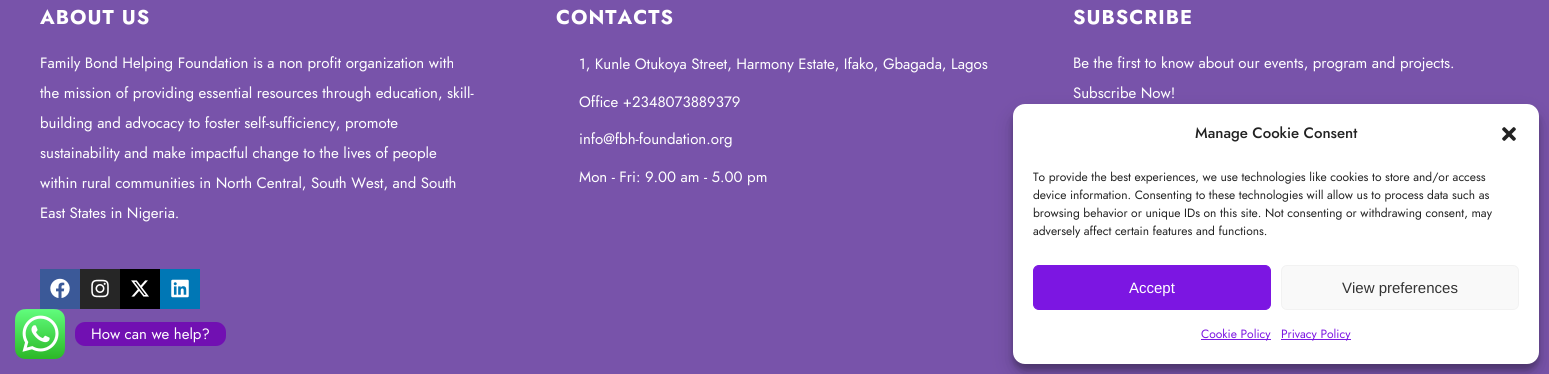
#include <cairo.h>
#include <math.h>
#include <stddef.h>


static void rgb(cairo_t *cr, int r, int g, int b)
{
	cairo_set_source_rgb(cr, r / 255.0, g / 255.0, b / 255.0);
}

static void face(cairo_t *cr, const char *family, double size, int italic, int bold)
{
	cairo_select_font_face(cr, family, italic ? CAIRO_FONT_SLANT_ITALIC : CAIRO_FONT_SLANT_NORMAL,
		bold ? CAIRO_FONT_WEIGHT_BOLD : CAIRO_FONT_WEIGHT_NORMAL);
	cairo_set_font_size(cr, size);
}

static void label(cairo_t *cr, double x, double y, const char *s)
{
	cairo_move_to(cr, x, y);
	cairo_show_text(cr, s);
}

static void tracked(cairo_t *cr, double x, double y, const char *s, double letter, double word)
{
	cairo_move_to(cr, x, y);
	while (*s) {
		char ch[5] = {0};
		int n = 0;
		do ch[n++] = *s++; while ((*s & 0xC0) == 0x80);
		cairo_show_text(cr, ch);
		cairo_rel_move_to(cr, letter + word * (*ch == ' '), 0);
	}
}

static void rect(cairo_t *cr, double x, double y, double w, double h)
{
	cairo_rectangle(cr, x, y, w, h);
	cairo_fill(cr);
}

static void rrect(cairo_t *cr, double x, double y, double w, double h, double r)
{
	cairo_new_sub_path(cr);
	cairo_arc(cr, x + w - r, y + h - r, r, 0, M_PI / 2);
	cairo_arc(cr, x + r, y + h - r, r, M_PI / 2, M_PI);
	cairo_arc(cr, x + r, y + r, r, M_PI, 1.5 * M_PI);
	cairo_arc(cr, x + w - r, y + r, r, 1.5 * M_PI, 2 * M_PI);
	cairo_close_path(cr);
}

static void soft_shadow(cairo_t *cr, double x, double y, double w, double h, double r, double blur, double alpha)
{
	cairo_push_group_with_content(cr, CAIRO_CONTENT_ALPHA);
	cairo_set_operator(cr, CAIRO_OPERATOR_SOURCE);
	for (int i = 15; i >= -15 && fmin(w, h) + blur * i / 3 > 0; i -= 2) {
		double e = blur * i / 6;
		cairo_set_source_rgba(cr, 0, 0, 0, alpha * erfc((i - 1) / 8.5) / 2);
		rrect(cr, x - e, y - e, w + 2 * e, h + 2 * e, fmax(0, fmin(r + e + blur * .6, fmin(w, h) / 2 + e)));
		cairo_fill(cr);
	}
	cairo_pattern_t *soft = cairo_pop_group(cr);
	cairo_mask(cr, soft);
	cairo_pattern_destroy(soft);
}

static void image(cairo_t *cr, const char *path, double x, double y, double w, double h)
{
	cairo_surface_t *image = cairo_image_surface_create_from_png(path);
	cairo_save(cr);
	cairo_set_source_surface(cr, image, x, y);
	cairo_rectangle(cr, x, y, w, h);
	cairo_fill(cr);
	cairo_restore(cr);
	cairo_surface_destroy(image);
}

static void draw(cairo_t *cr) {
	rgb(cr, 120, 83, 170);
	cairo_paint(cr);
	face(cr, "Jost", 20, 0, 1);
	rgb(cr, 255, 255, 255);
	tracked(cr, 40, 24, "ABOUT US", 1, 0);
	face(cr, "Jost", 15, 0, 0);
	label(cr, 40, 68, "Family Bond Helping Foundation is a non profit organization with");
	label(cr, 40, 98, "the mission of providing essential resources through education, skill-");
	label(cr, 40, 128, "building and advocacy to foster self-sufficiency, promote");
	label(cr, 40, 158, "sustainability and make impactful change to the lives of people");
	label(cr, 40, 188, "within rural communities in North Central, South West, and South");
	label(cr, 40, 218, "East States in Nigeria.");
	rgb(cr, 59, 89, 152);
	rect(cr, 40, 269, 40, 40);
	image(cr, "image0.png", 50, 278, 20, 20);
	rgb(cr, 38, 38, 38);
	rect(cr, 80, 269, 40, 40);
	image(cr, "image1.png", 91, 279, 18, 19);
	rgb(cr, 0, 0, 0);
	rect(cr, 120, 269, 40, 40);
	image(cr, "image2.png", 131, 280, 18, 17);
	rgb(cr, 0, 119, 181);
	rect(cr, 160, 269, 40, 40);
	image(cr, "image3.png", 171, 279, 18, 19);
	face(cr, "Jost", 20, 0, 1);
	rgb(cr, 255, 255, 255);
	tracked(cr, 556, 24, "CONTACTS", 1, 0);
	face(cr, "Jost", 15, 0, 0);
	label(cr, 579, 69, "1, Kunle Otukoya Street, Harmony Estate, Ifako, Gbagada, Lagos");
	label(cr, 579, 107, "Office +2348073889379");
	label(cr, 579, 144, "info@fbh-foundation.org");
	label(cr, 579, 182, "Mon - Fri: 9.00 am - 5.00 pm");
	face(cr, "Jost", 20, 0, 1);
	tracked(cr, 1073, 24, "SUBSCRIBE", 1, 0);
	face(cr, "Jost", 15, 0, 0);
	label(cr, 1073, 68, "Be the first to know about our events, program and projects.");
	label(cr, 1073, 98, "Subscribe Now!");
	image(cr, "image4.png", 15, 309, 50, 50);
	rgb(cr, 113, 16, 178);
	rrect(cr, 75, 322, 151, 24, 10);
	cairo_fill(cr);
	rgb(cr, 255, 255, 255);
	label(cr, 91, 339, "How can we help?");
	rgb(cr, 0, 0, 0);
	soft_shadow(cr, 1013, 110, 526, 260, 12, 3, 0.23);
	soft_shadow(cr, 1013, 114, 526, 260, 12, 10, 0.19);
	rgb(cr, 255, 255, 255);
	rrect(cr, 1013, 104, 526, 260, 12);
	cairo_fill(cr);
	face(cr, "Jost Medium", 15, 0, 0);
	rgb(cr, 34, 34, 34);
	label(cr, 1195, 138, "Manage Cookie Consent");
	image(cr, "image5.png", 1502, 127, 14, 14);
	face(cr, "Jost", 12, 0, 0);
	label(cr, 1033, 181, "To provide the best experiences, we use technologies like cookies to store and/or access");
	label(cr, 1033, 199, "device information. Consenting to these technologies will allow us to process data such as");
	label(cr, 1033, 217, "browsing behavior or unique IDs on this site. Not consenting or withdrawing consent, may");
	label(cr, 1033, 235, "adversely affect certain features and functions.");
	rgb(cr, 124, 22, 226);
	rrect(cr, 1033.5, 265.5, 237, 44, 5.5);
	cairo_fill_preserve(cr);
	cairo_set_line_width(cr, 1);
	cairo_stroke(cr);
	face(cr, "Liberation Sans", 15, 0, 0);
	rgb(cr, 255, 255, 255);
	label(cr, 1129, 293, "Accept");
	rgb(cr, 249, 249, 249);
	rrect(cr, 1281.5, 265.5, 237, 44, 5.5);
	cairo_fill_preserve(cr);
	rgb(cr, 242, 242, 242);
	cairo_stroke(cr);
	rgb(cr, 51, 51, 51);
	label(cr, 1342, 293, "View preferences");
	rgb(cr, 124, 22, 226);
	rect(cr, 1201, 339, 70, 1);
	face(cr, "Jost", 12, 0, 0);
	label(cr, 1201, 338, "Cookie Policy");
	rect(cr, 1281, 339, 70, 1);
	label(cr, 1281, 338, "Privacy Policy");
}

int main(void) {
	cairo_surface_t *surface = cairo_image_surface_create(CAIRO_FORMAT_RGB24, 1549, 374);
	cairo_t *cr = cairo_create(surface);
	cairo_font_options_t *options = cairo_font_options_create();
	cairo_font_options_set_hint_metrics(options, CAIRO_HINT_METRICS_OFF);
	cairo_font_options_set_hint_style(options, CAIRO_HINT_STYLE_NONE);
	cairo_set_font_options(cr, options);
	cairo_set_miter_limit(cr, 4);
	draw(cr);
	cairo_surface_write_to_png(surface, "render.png");
	cairo_font_options_destroy(options);
	cairo_destroy(cr);
	cairo_surface_destroy(surface);
	return 0;
}
